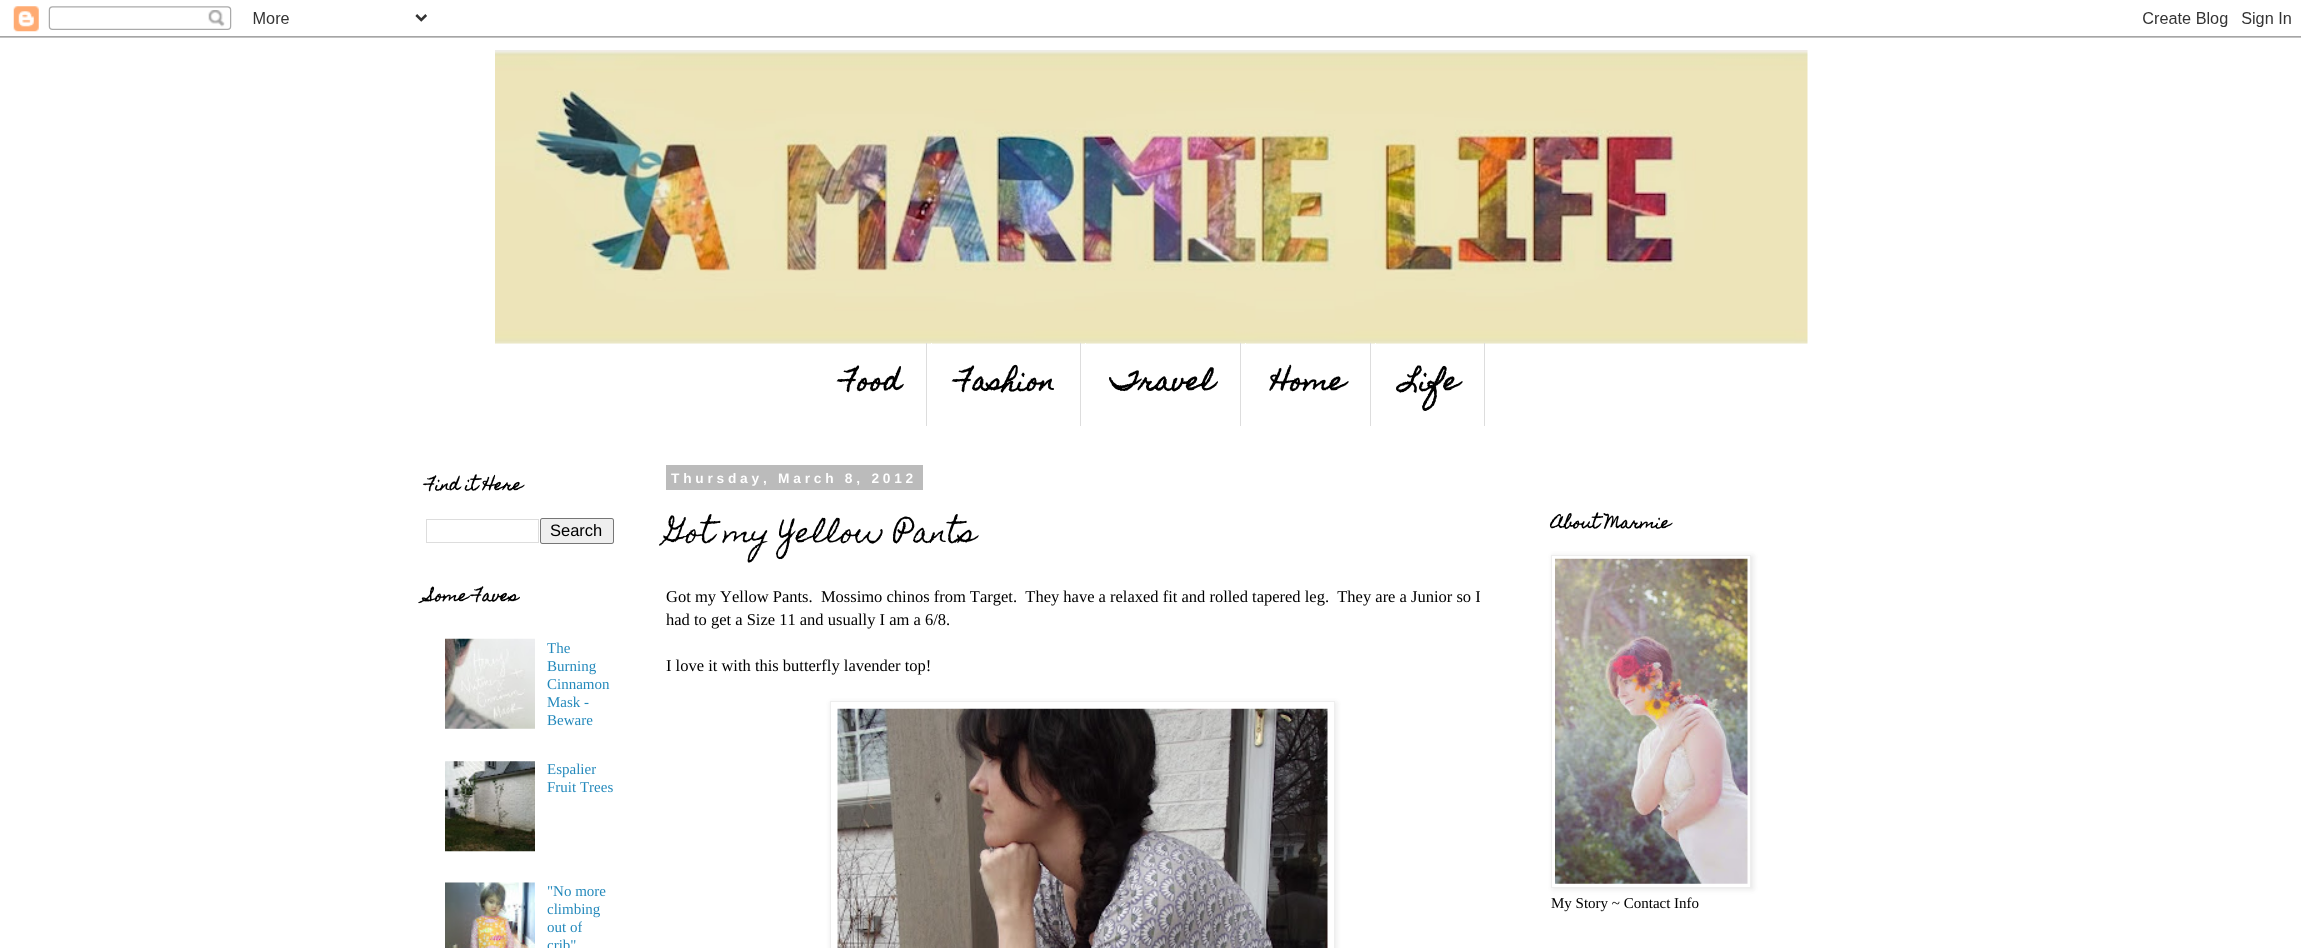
#include <cairo.h>
#include <math.h>
#include <stddef.h>


static void rgb(cairo_t *cr, int r, int g, int b)
{
	cairo_set_source_rgb(cr, r / 255.0, g / 255.0, b / 255.0);
}

static void face(cairo_t *cr, const char *family, double size, int italic, int bold)
{
	cairo_select_font_face(cr, family, italic ? CAIRO_FONT_SLANT_ITALIC : CAIRO_FONT_SLANT_NORMAL,
		bold ? CAIRO_FONT_WEIGHT_BOLD : CAIRO_FONT_WEIGHT_NORMAL);
	cairo_set_font_size(cr, size);
}

static void label(cairo_t *cr, double x, double y, const char *s)
{
	cairo_move_to(cr, x, y);
	cairo_show_text(cr, s);
}

static void tracked(cairo_t *cr, double x, double y, const char *s, double letter, double word)
{
	cairo_move_to(cr, x, y);
	while (*s) {
		char ch[5] = {0};
		int n = 0;
		do ch[n++] = *s++; while ((*s & 0xC0) == 0x80);
		cairo_show_text(cr, ch);
		cairo_rel_move_to(cr, letter + word * (*ch == ' '), 0);
	}
}

static void rect(cairo_t *cr, double x, double y, double w, double h)
{
	cairo_rectangle(cr, x, y, w, h);
	cairo_fill(cr);
}

static void rrect(cairo_t *cr, double x, double y, double w, double h, double r)
{
	cairo_new_sub_path(cr);
	cairo_arc(cr, x + w - r, y + h - r, r, 0, M_PI / 2);
	cairo_arc(cr, x + r, y + h - r, r, M_PI / 2, M_PI);
	cairo_arc(cr, x + r, y + r, r, M_PI, 1.5 * M_PI);
	cairo_arc(cr, x + w - r, y + r, r, 1.5 * M_PI, 2 * M_PI);
	cairo_close_path(cr);
}

static void soft_shadow(cairo_t *cr, double x, double y, double w, double h, double r, double blur, double alpha)
{
	cairo_push_group_with_content(cr, CAIRO_CONTENT_ALPHA);
	cairo_set_operator(cr, CAIRO_OPERATOR_SOURCE);
	for (int i = 15; i >= -15 && fmin(w, h) + blur * i / 3 > 0; i -= 2) {
		double e = blur * i / 6;
		cairo_set_source_rgba(cr, 0, 0, 0, alpha * erfc((i - 1) / 8.5) / 2);
		rrect(cr, x - e, y - e, w + 2 * e, h + 2 * e, fmax(0, fmin(r + e + blur * .6, fmin(w, h) / 2 + e)));
		cairo_fill(cr);
	}
	cairo_pattern_t *soft = cairo_pop_group(cr);
	cairo_mask(cr, soft);
	cairo_pattern_destroy(soft);
}

static void image(cairo_t *cr, const char *path, double x, double y, double w, double h)
{
	cairo_surface_t *image = cairo_image_surface_create_from_png(path);
	cairo_save(cr);
	cairo_set_source_surface(cr, image, x, y);
	cairo_rectangle(cr, x, y, w, h);
	cairo_fill(cr);
	cairo_restore(cr);
	cairo_surface_destroy(image);
}

static void draw(cairo_t *cr) {
	rgb(cr, 255, 255, 255);
	cairo_paint(cr);
	image(cr, "image0.png", 0, 6, 2301, 32);
	image(cr, "image1.png", 495, 50, 1313, 294);
	rgb(cr, 221, 221, 221);
	rect(cr, 926, 343, 1, 83);
	face(cr, "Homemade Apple", 25, 0, 1);
	rgb(cr, 0, 0, 0);
	label(cr, 842, 390, "Food");
	rgb(cr, 221, 221, 221);
	rect(cr, 1080, 343, 1, 83);
	rgb(cr, 255, 255, 255);
	rect(cr, 931, 343, 1, 1);
	rgb(cr, 0, 0, 0);
	label(cr, 957, 390, "Fashion");
	rgb(cr, 221, 221, 221);
	rect(cr, 1240, 343, 1, 83);
	rgb(cr, 255, 255, 255);
	rect(cr, 1085, 343, 1, 1);
	rgb(cr, 0, 0, 0);
	label(cr, 1111, 390, "Travel");
	rgb(cr, 221, 221, 221);
	rect(cr, 1370, 343, 1, 83);
	rgb(cr, 255, 255, 255);
	rect(cr, 1245, 343, 1, 1);
	rgb(cr, 0, 0, 0);
	label(cr, 1271, 390, "Home");
	rgb(cr, 221, 221, 221);
	rect(cr, 1484, 343, 1, 83);
	rgb(cr, 255, 255, 255);
	rect(cr, 1375, 343, 1, 1);
	rgb(cr, 0, 0, 0);
	label(cr, 1401, 390, "Life");
	face(cr, "Homemade Apple", 15, 0, 1);
	label(cr, 426, 490, "Find it Here");
	cairo_rectangle(cr, 426.5, 519.5, 112, 23);
	rgb(cr, 221, 221, 221);
	cairo_set_line_width(cr, 1);
	cairo_stroke(cr);
	rgb(cr, 239, 239, 239);
	rrect(cr, 540.5, 518.5, 73, 25, 2);
	cairo_fill_preserve(cr);
	rgb(cr, 118, 118, 118);
	cairo_stroke(cr);
	face(cr, "Liberation Sans", 16.5, 0, 0);
	rgb(cr, 0, 0, 0);
	label(cr, 550, 536, "Search");
	face(cr, "Homemade Apple", 15, 0, 1);
	label(cr, 426, 601, "Some Faves");
	image(cr, "image2.png", 445, 638, 90, 91);
	face(cr, "Liberation Serif", 15, 0, 0);
	rgb(cr, 34, 136, 187);
	label(cr, 547, 653, "The");
	label(cr, 547, 671, "Burning");
	label(cr, 547, 689, "Cinnamon");
	label(cr, 547, 707, "Mask -");
	label(cr, 547, 725, "Beware");
	image(cr, "image3.png", 445, 761, 90, 91);
	label(cr, 547, 774, "Espalier");
	label(cr, 547, 792, "Fruit Trees");
	image(cr, "image4.png", 445, 882, 90, 66);
	label(cr, 547, 896, "\"No more");
	label(cr, 547, 914, "climbing");
	label(cr, 547, 932, "out of");
	label(cr, 547, 950, "crib\"");
	rgb(cr, 187, 187, 187);
	rect(cr, 666, 465, 257, 25);
	face(cr, "Liberation Sans", 13.75, 0, 1);
	rgb(cr, 255, 255, 255);
	tracked(cr, 671, 483, "Thursday, March 8, 2012", 3.75, 0);
	face(cr, "Homemade Apple", 27.5, 0, 0);
	rgb(cr, 0, 0, 0);
	label(cr, 666, 542, "Got my Yellow Pants");
	face(cr, "Liberation Serif", 16.5, 0, 0);
	label(cr, 666, 602, "Got my Yellow Pants.  Mossimo chinos from Target.  They have a relaxed fit and rolled tapered leg.  They are a Junior so I");
	label(cr, 666, 625, "had to get a Size 11 and usually I am a 6/8.");
	label(cr, 666, 671, "I love it with this butterfly lavender top!");
	rgb(cr, 0, 0, 0);
	soft_shadow(cr, 831, 703, 505, 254, 0, 3, 0.1);
	rgb(cr, 255, 255, 255);
	cairo_rectangle(cr, 830.5, 701.5, 504, 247);
	cairo_fill_preserve(cr);
	rgb(cr, 238, 238, 238);
	cairo_stroke(cr);
	image(cr, "image5.png", 837, 708, 491, 240);
	face(cr, "Homemade Apple", 15, 0, 1);
	rgb(cr, 0, 0, 0);
	label(cr, 1551, 528, "About Marmie");
	rgb(cr, 0, 0, 0);
	soft_shadow(cr, 1553, 556, 200, 333, 0, 3, 0.1);
	rgb(cr, 255, 255, 255);
	cairo_rectangle(cr, 1551.5, 555.5, 199, 332);
	cairo_fill_preserve(cr);
	rgb(cr, 238, 238, 238);
	cairo_stroke(cr);
	image(cr, "image6.png", 1555, 558, 193, 326);
	face(cr, "Liberation Serif", 15, 0, 0);
	rgb(cr, 0, 0, 0);
	label(cr, 1551, 908, "My Story ~ Contact Info");
}

int main(void) {
	cairo_surface_t *surface = cairo_image_surface_create(CAIRO_FORMAT_RGB24, 2301, 948);
	cairo_t *cr = cairo_create(surface);
	cairo_font_options_t *options = cairo_font_options_create();
	cairo_font_options_set_hint_metrics(options, CAIRO_HINT_METRICS_OFF);
	cairo_font_options_set_hint_style(options, CAIRO_HINT_STYLE_NONE);
	cairo_set_font_options(cr, options);
	cairo_set_miter_limit(cr, 4);
	draw(cr);
	cairo_surface_write_to_png(surface, "render.png");
	cairo_font_options_destroy(options);
	cairo_destroy(cr);
	cairo_surface_destroy(surface);
	return 0;
}
